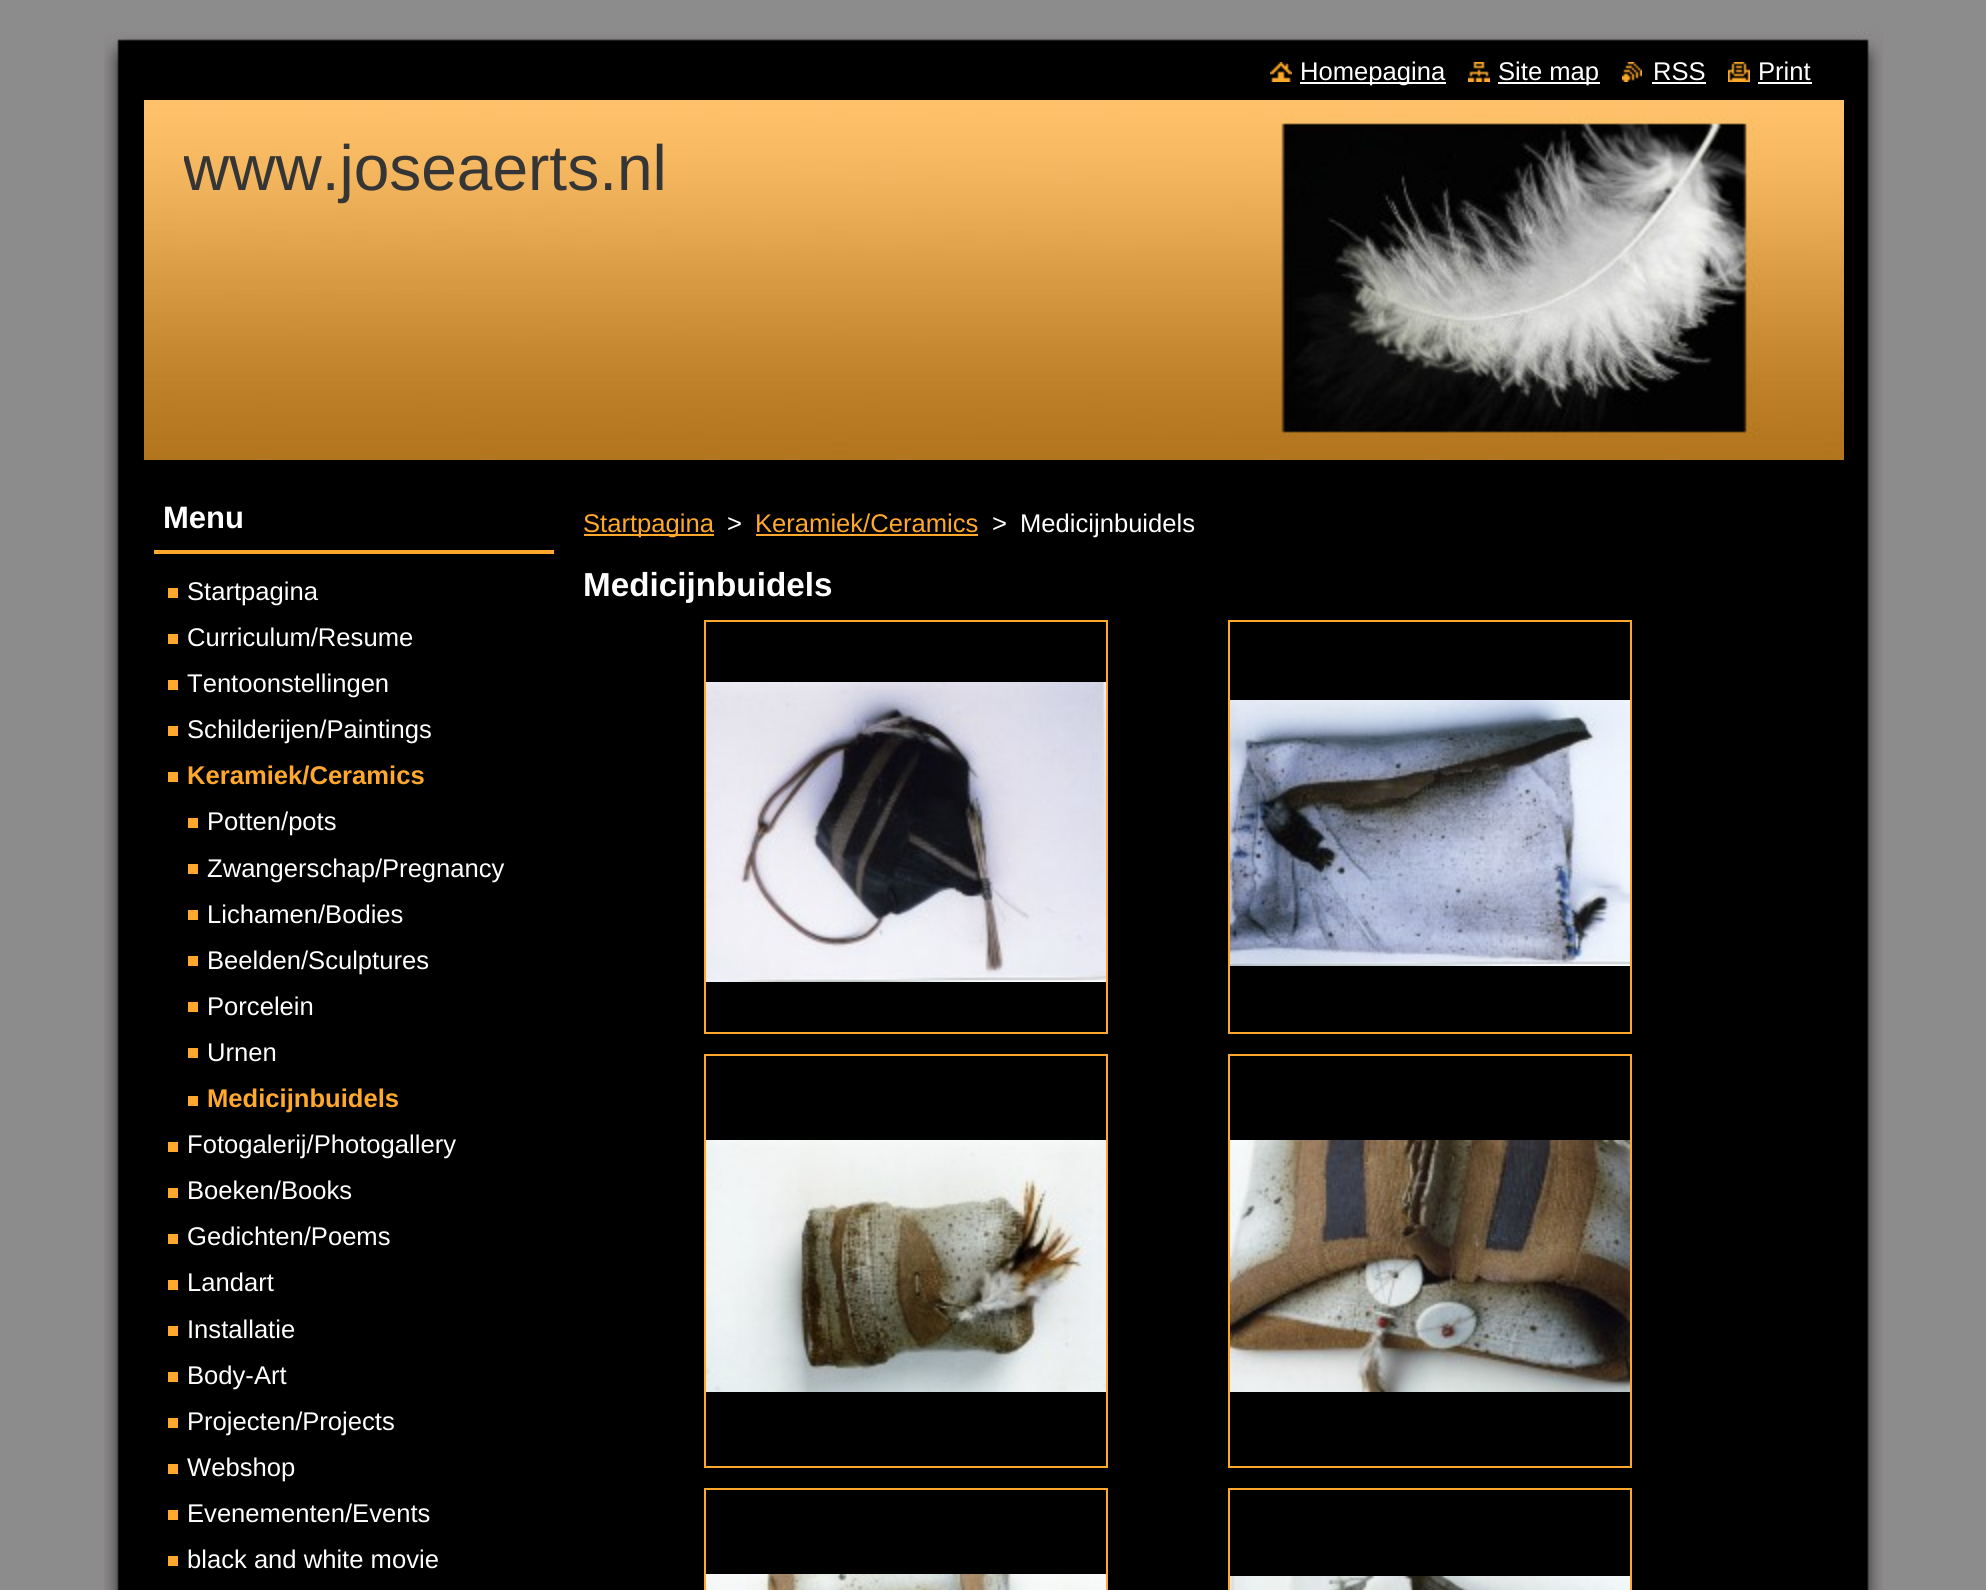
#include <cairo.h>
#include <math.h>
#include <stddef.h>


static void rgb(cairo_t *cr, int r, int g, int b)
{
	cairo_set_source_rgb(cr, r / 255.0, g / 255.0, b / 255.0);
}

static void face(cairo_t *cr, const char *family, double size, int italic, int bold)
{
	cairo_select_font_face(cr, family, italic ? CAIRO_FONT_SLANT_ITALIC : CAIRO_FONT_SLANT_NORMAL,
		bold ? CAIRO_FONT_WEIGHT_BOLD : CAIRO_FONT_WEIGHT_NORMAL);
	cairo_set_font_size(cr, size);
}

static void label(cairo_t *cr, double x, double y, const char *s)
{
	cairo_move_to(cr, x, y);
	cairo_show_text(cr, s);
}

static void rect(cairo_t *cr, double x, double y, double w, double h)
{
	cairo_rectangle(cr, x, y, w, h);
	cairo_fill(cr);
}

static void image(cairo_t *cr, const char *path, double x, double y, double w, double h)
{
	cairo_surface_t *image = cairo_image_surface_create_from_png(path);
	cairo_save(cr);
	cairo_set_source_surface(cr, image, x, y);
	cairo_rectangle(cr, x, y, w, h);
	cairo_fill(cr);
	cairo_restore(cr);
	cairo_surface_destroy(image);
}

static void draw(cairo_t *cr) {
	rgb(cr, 140, 140, 140);
	cairo_paint(cr);
	image(cr, "image0.png", 104, 30, 1779, 1526);
	image(cr, "image1.png", 104, 30, 1778, 32);
	image(cr, "image2.png", 104, 1556, 1779, 34);
	image(cr, "image3.png", 1270, 62, 22, 20);
	rgb(cr, 255, 255, 255);
	rect(cr, 1300, 82, 146, 2);
	face(cr, "Liberation Sans", 25.6, 0, 0);
	label(cr, 1300, 80, "Homepagina");
	image(cr, "image4.png", 1468, 62, 22, 20);
	rect(cr, 1498, 82, 102, 2);
	label(cr, 1498, 80, "Site map");
	image(cr, "image5.png", 1622, 62, 20, 20);
	label(cr, 1653, 80, "RSS");
	rect(cr, 1652, 82, 54, 2);
	image(cr, "image6.png", 1728, 62, 22, 20);
	label(cr, 1758, 80, "Print");
	rect(cr, 1758, 82, 54, 2);
	image(cr, "image7.png", 144, 100, 1700, 360);
	cairo_save(cr);
	cairo_rectangle(cr, 184, 120, 1620, 96);
	cairo_clip(cr);
	face(cr, "Liberation Sans", 64, 0, 0);
	rgb(cr, 53, 53, 53);
	label(cr, 183, 190, "www.joseaerts.nl");
	cairo_restore(cr);
	rgb(cr, 255, 168, 44);
	rect(cr, 154, 550, 400, 4);
	face(cr, "Liberation Sans", 31, 0, 1);
	rgb(cr, 255, 255, 255);
	label(cr, 163, 528, "Menu");
	face(cr, "Liberation Sans", 25.6, 0, 0);
	label(cr, 187, 600, "Startpagina");
	rgb(cr, 255, 168, 45);
	rect(cr, 168, 588, 10, 10);
	rgb(cr, 255, 255, 255);
	label(cr, 187, 646, "Curriculum/Resume");
	rgb(cr, 255, 168, 45);
	rect(cr, 168, 634, 10, 10);
	rgb(cr, 255, 255, 255);
	label(cr, 187, 692, "Tentoonstellingen");
	rgb(cr, 255, 168, 45);
	rect(cr, 168, 680, 10, 10);
	rgb(cr, 255, 255, 255);
	label(cr, 187, 738, "Schilderijen/Paintings");
	rgb(cr, 255, 168, 45);
	rect(cr, 168, 726, 10, 10);
	face(cr, "Liberation Sans", 25.6, 0, 1);
	rgb(cr, 255, 168, 44);
	label(cr, 187, 784, "Keramiek/Ceramics");
	rgb(cr, 255, 168, 45);
	rect(cr, 168, 772, 10, 10);
	face(cr, "Liberation Sans", 25.6, 0, 0);
	rgb(cr, 255, 255, 255);
	label(cr, 207, 830, "Potten/pots");
	rgb(cr, 255, 168, 45);
	rect(cr, 188, 818, 10, 10);
	rgb(cr, 255, 255, 255);
	label(cr, 207, 877, "Zwangerschap/Pregnancy");
	rgb(cr, 255, 168, 45);
	rect(cr, 188, 864, 10, 10);
	rgb(cr, 255, 255, 255);
	label(cr, 207, 923, "Lichamen/Bodies");
	rgb(cr, 255, 168, 45);
	rect(cr, 188, 910, 10, 10);
	rgb(cr, 255, 255, 255);
	label(cr, 207, 969, "Beelden/Sculptures");
	rgb(cr, 255, 168, 45);
	rect(cr, 188, 956, 10, 10);
	rgb(cr, 255, 255, 255);
	label(cr, 207, 1015, "Porcelein");
	rgb(cr, 255, 168, 45);
	rect(cr, 188, 1002, 10, 10);
	rgb(cr, 255, 255, 255);
	label(cr, 207, 1061, "Urnen");
	rgb(cr, 255, 168, 45);
	rect(cr, 188, 1048, 10, 10);
	face(cr, "Liberation Sans", 25.6, 0, 1);
	rgb(cr, 255, 168, 44);
	label(cr, 207, 1107, "Medicijnbuidels");
	rgb(cr, 255, 168, 45);
	rect(cr, 188, 1096, 10, 10);
	face(cr, "Liberation Sans", 25.6, 0, 0);
	rgb(cr, 255, 255, 255);
	label(cr, 187, 1153, "Fotogalerij/Photogallery");
	rgb(cr, 255, 168, 45);
	rect(cr, 168, 1142, 10, 10);
	rgb(cr, 255, 255, 255);
	label(cr, 187, 1199, "Boeken/Books");
	rgb(cr, 255, 168, 45);
	rect(cr, 168, 1188, 10, 10);
	rgb(cr, 255, 255, 255);
	label(cr, 187, 1245, "Gedichten/Poems");
	rgb(cr, 255, 168, 45);
	rect(cr, 168, 1234, 10, 10);
	rgb(cr, 255, 255, 255);
	label(cr, 187, 1291, "Landart");
	rgb(cr, 255, 168, 45);
	rect(cr, 168, 1280, 10, 10);
	rgb(cr, 255, 255, 255);
	label(cr, 187, 1338, "Installatie");
	rgb(cr, 255, 168, 45);
	rect(cr, 168, 1326, 10, 10);
	rgb(cr, 255, 255, 255);
	label(cr, 187, 1384, "Body-Art");
	rgb(cr, 255, 168, 45);
	rect(cr, 168, 1372, 10, 10);
	rgb(cr, 255, 255, 255);
	label(cr, 187, 1430, "Projecten/Projects");
	rgb(cr, 255, 168, 45);
	rect(cr, 168, 1418, 10, 10);
	rgb(cr, 255, 255, 255);
	label(cr, 187, 1476, "Webshop");
	rgb(cr, 255, 168, 45);
	rect(cr, 168, 1464, 10, 10);
	rgb(cr, 255, 255, 255);
	label(cr, 187, 1522, "Evenementen/Events");
	rgb(cr, 255, 168, 45);
	rect(cr, 168, 1510, 10, 10);
	rgb(cr, 255, 255, 255);
	label(cr, 187, 1568, "black and white movie");
	rgb(cr, 255, 168, 45);
	rect(cr, 168, 1556, 10, 10);
	rgb(cr, 255, 168, 44);
	rect(cr, 584, 534, 130, 2);
	label(cr, 583, 532, "Startpagina");
	rgb(cr, 255, 255, 255);
	label(cr, 727, 532, ">");
	rgb(cr, 255, 168, 44);
	label(cr, 755, 532, "Keramiek/Ceramics");
	rect(cr, 756, 534, 222, 2);
	rgb(cr, 255, 255, 255);
	label(cr, 992, 532, ">");
	label(cr, 1020, 532, "Medicijnbuidels");
	face(cr, "Liberation Sans", 33.25, 0, 1);
	label(cr, 583, 596, "Medicijnbuidels");
	cairo_rectangle(cr, 705, 621, 402, 412);
	rgb(cr, 255, 168, 44);
	cairo_stroke(cr);
	image(cr, "image8.png", 706, 682, 400, 300);
	cairo_rectangle(cr, 1229, 621, 402, 412);
	cairo_stroke(cr);
	image(cr, "image9.png", 1230, 700, 400, 266);
	cairo_rectangle(cr, 705, 1055, 402, 412);
	cairo_stroke(cr);
	image(cr, "image10.png", 706, 1140, 400, 252);
	cairo_rectangle(cr, 1229, 1055, 402, 412);
	cairo_stroke(cr);
	image(cr, "image11.png", 1230, 1140, 400, 252);
	cairo_rectangle(cr, 705, 1489, 402, 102);
	cairo_stroke(cr);
	image(cr, "image12.png", 706, 1574, 400, 16);
	cairo_rectangle(cr, 1229, 1489, 402, 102);
	cairo_stroke(cr);
	image(cr, "image13.png", 1230, 1576, 400, 14);
}

int main(void) {
	cairo_surface_t *surface = cairo_image_surface_create(CAIRO_FORMAT_RGB24, 1986, 1590);
	cairo_t *cr = cairo_create(surface);
	cairo_font_options_t *options = cairo_font_options_create();
	cairo_font_options_set_hint_metrics(options, CAIRO_HINT_METRICS_OFF);
	cairo_font_options_set_hint_style(options, CAIRO_HINT_STYLE_NONE);
	cairo_set_font_options(cr, options);
	cairo_set_miter_limit(cr, 4);
	draw(cr);
	cairo_surface_write_to_png(surface, "render.png");
	cairo_font_options_destroy(options);
	cairo_destroy(cr);
	cairo_surface_destroy(surface);
	return 0;
}
